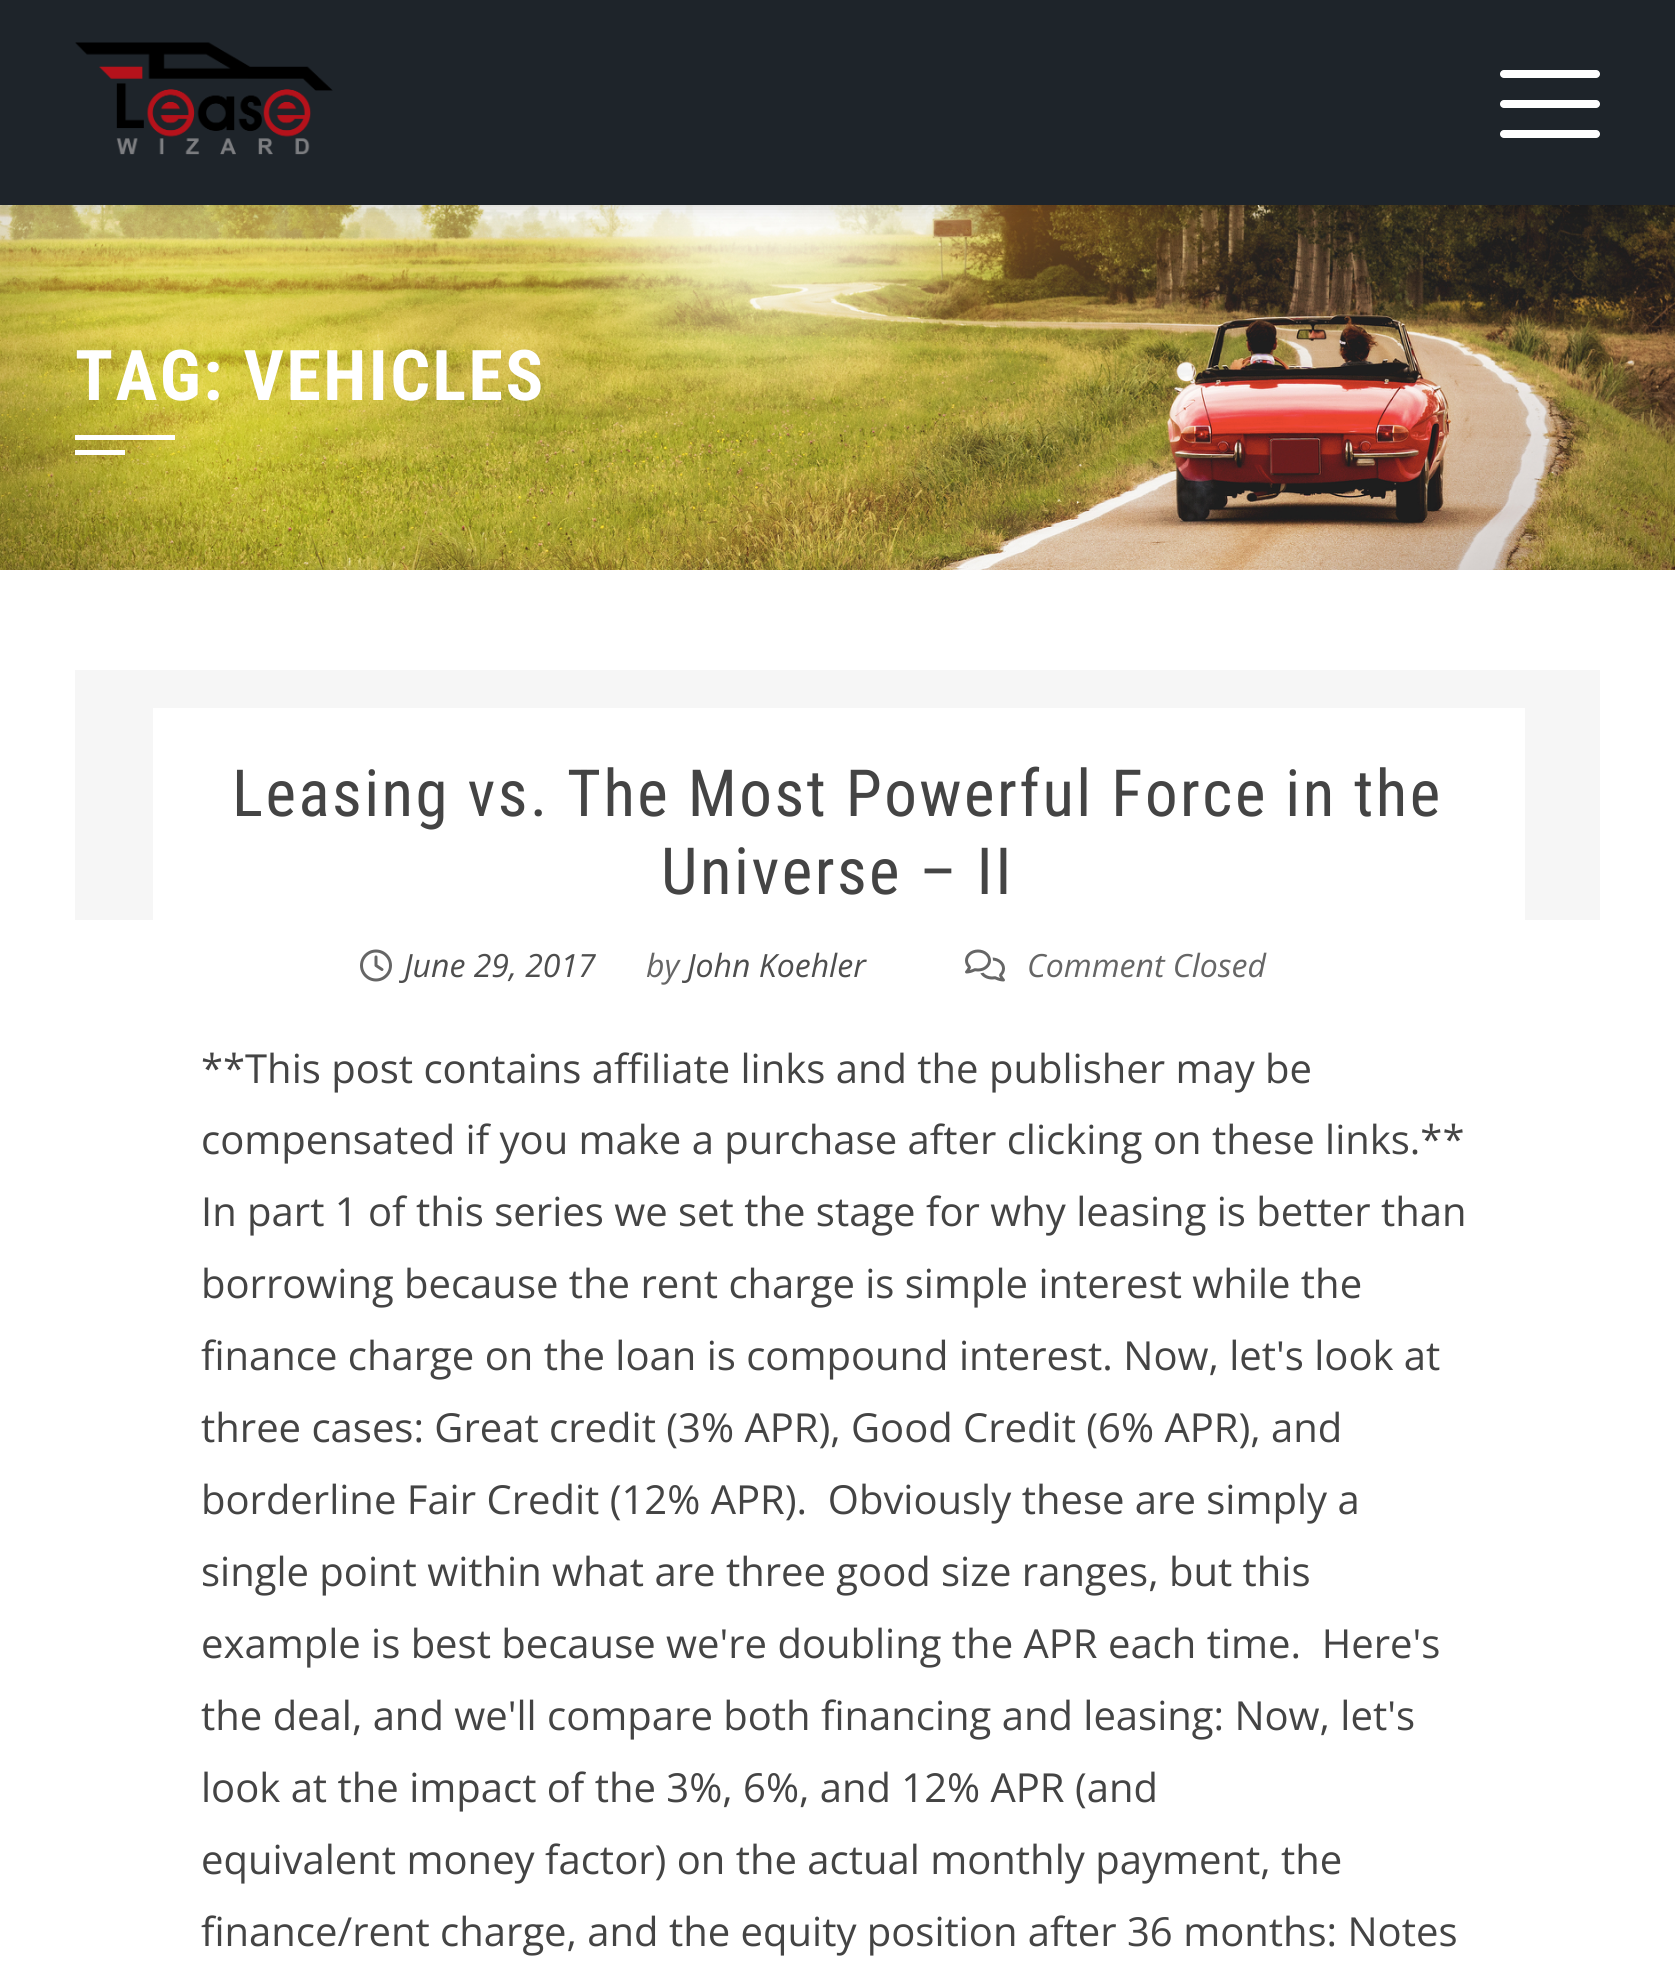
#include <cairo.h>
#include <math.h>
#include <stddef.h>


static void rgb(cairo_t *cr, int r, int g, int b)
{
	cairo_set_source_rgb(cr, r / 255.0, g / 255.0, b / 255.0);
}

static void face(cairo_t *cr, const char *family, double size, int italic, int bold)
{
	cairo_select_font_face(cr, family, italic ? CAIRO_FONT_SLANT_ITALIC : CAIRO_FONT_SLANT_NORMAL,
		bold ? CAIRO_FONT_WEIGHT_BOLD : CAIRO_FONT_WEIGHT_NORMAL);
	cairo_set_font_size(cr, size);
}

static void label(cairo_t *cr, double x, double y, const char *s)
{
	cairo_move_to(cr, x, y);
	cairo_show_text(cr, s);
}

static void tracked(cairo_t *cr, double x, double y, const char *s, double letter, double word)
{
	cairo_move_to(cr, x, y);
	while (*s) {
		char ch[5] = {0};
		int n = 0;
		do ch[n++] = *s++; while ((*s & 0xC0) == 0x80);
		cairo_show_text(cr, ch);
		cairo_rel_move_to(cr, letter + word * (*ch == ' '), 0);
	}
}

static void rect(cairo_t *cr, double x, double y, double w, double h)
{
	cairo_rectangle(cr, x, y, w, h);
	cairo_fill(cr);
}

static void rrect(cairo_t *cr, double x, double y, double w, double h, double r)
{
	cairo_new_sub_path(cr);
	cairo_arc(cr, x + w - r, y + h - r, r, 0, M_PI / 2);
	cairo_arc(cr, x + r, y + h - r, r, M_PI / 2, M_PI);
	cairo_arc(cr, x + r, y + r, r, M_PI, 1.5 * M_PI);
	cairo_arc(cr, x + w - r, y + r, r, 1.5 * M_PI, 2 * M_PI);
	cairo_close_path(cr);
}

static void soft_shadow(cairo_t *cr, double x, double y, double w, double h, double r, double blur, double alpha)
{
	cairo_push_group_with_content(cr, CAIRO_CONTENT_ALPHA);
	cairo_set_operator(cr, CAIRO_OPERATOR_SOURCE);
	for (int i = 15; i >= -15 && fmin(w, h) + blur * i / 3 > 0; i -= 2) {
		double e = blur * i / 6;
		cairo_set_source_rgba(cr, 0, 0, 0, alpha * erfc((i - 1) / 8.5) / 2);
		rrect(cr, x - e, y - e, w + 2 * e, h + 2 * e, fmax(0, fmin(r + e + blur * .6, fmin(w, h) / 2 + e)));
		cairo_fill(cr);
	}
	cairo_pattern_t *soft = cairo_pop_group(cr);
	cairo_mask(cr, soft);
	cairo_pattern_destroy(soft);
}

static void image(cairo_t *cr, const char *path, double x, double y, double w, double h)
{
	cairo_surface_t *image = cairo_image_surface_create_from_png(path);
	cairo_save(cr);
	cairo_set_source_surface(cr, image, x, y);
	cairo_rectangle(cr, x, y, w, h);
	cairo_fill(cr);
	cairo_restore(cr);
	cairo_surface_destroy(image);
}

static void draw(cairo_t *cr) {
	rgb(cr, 255, 255, 255);
	cairo_paint(cr);
	image(cr, "image1.png", 0, 205, 1675, 365);
	rgb(cr, 0, 0, 0);
	soft_shadow(cr, 0, 0, 1675, 205, 0, 10, 0.2);
	rgb(cr, 30, 36, 42);
	rect(cr, 0, 0, 1675, 205);
	image(cr, "image0.png", 75, 42, 258, 113);
	rgb(cr, 255, 255, 255);
	rrect(cr, 1500, 100, 100, 8, 4);
	cairo_fill(cr);
	rrect(cr, 1500, 70, 100, 8, 4);
	cairo_fill(cr);
	rrect(cr, 1500, 130, 100, 8, 4);
	cairo_fill(cr);
	face(cr, "Roboto Condensed", 70, 0, 1);
	tracked(cr, 75, 400, "TAG: VEHICLES", 2.5, 0);
	rect(cr, 75, 435, 100, 5);
	rect(cr, 75, 450, 50, 5);
	rgb(cr, 246, 246, 246);
	rect(cr, 75, 670, 1525, 250);
	rgb(cr, 255, 255, 255);
	rect(cr, 153, 708, 1372, 212);
	face(cr, "Roboto Condensed", 65, 0, 0);
	rgb(cr, 68, 68, 68);
	tracked(cr, 232, 816, "Leasing vs. The Most Powerful Force in the", 2.5, 0);
	tracked(cr, 661, 894, "Universe – II", 2.5, 0);
	image(cr, "image2.png", 360, 949, 32, 33);
	face(cr, "Open Sans", 32, 1, 0);
	rgb(cr, 78, 78, 78);
	label(cr, 404, 977, "June 29, 2017");
	rgb(cr, 102, 102, 102);
	label(cr, 646, 977, "by");
	rgb(cr, 78, 78, 78);
	label(cr, 687, 977, "John Koehler");
	image(cr, "image3.png", 965, 949, 40, 33);
	rgb(cr, 102, 102, 102);
	label(cr, 1027, 977, "Comment Closed");
	face(cr, "Open Sans", 40, 0, 0);
	rgb(cr, 68, 68, 68);
	label(cr, 201, 1083, "**This post contains affiliate links and the publisher may be");
	label(cr, 201, 1154, "compensated if you make a purchase after clicking on these links.**");
	label(cr, 201, 1226, "In part 1 of this series we set the stage for why leasing is better than");
	label(cr, 201, 1298, "borrowing because the rent charge is simple interest while the");
	label(cr, 201, 1370, "finance charge on the loan is compound interest. Now, let's look at");
	label(cr, 201, 1442, "three cases: Great credit (3% APR), Good Credit (6% APR), and");
	label(cr, 201, 1514, "borderline Fair Credit (12% APR).  Obviously these are simply a");
	label(cr, 201, 1586, "single point within what are three good size ranges, but this");
	label(cr, 201, 1658, "example is best because we're doubling the APR each time.  Here's");
	label(cr, 201, 1730, "the deal, and we'll compare both financing and leasing: Now, let's");
	label(cr, 201, 1802, "look at the impact of the 3%, 6%, and 12% APR (and");
	label(cr, 201, 1874, "equivalent money factor) on the actual monthly payment, the");
	label(cr, 201, 1946, "finance/rent charge, and the equity position after 36 months: Notes");
}

int main(void) {
	cairo_surface_t *surface = cairo_image_surface_create(CAIRO_FORMAT_RGB24, 1675, 1973);
	cairo_t *cr = cairo_create(surface);
	cairo_font_options_t *options = cairo_font_options_create();
	cairo_font_options_set_hint_metrics(options, CAIRO_HINT_METRICS_OFF);
	cairo_font_options_set_hint_style(options, CAIRO_HINT_STYLE_NONE);
	cairo_set_font_options(cr, options);
	cairo_set_miter_limit(cr, 4);
	draw(cr);
	cairo_surface_write_to_png(surface, "render.png");
	cairo_font_options_destroy(options);
	cairo_destroy(cr);
	cairo_surface_destroy(surface);
	return 0;
}
